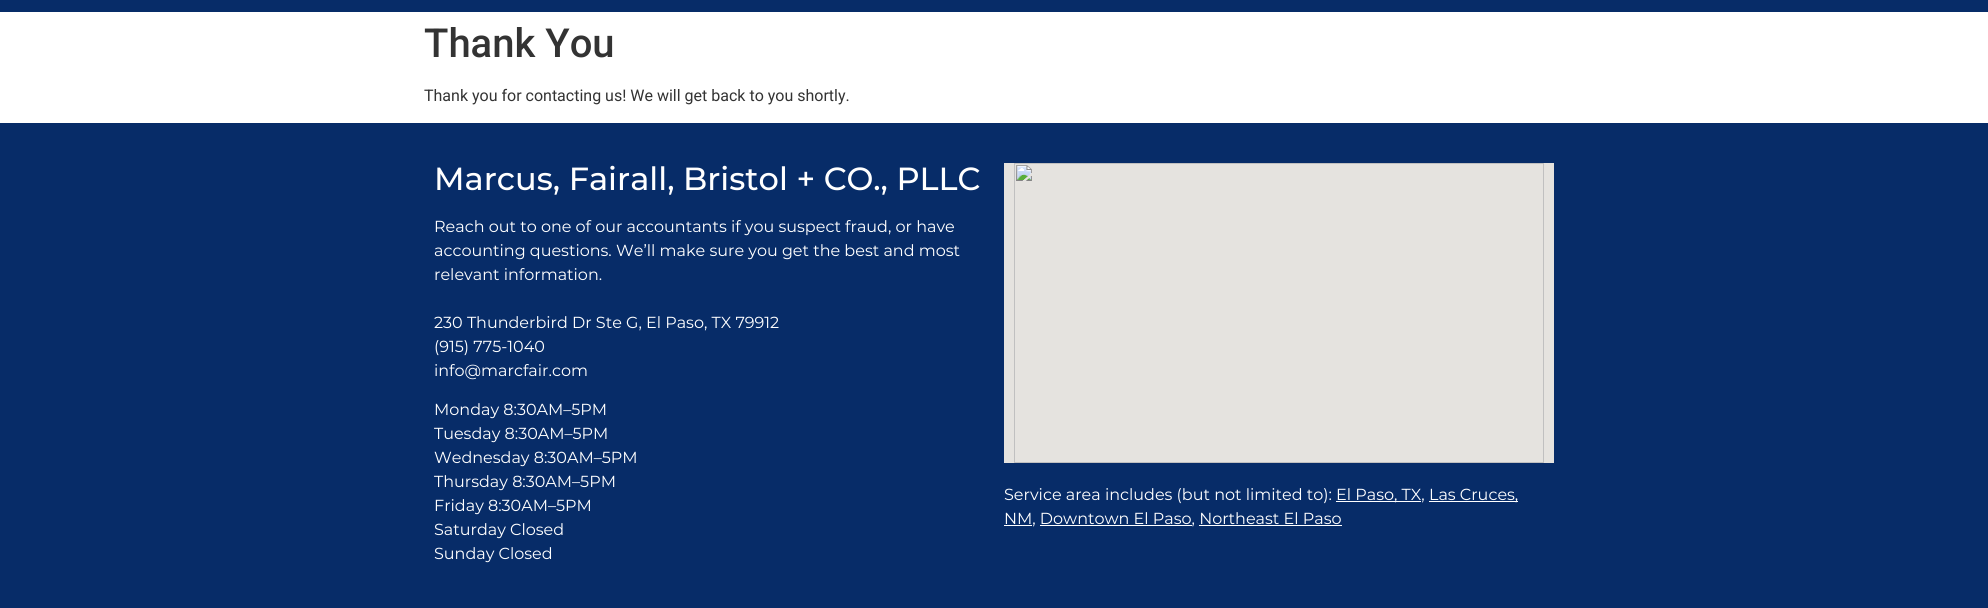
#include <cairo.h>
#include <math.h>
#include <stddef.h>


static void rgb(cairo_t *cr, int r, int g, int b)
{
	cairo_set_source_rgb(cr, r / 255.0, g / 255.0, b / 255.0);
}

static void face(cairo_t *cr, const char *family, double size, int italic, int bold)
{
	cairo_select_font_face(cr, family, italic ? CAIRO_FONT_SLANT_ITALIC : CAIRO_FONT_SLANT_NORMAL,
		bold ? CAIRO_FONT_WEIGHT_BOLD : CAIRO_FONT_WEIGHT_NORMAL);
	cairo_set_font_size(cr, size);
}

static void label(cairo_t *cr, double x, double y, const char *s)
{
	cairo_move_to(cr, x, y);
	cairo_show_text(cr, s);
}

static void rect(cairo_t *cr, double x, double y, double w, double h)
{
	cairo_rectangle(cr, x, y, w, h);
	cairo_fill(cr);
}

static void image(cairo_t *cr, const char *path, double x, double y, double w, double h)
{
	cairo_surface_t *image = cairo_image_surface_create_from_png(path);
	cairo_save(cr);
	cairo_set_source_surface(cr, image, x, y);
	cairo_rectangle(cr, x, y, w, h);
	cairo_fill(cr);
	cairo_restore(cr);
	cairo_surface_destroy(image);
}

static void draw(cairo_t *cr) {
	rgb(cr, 255, 255, 255);
	cairo_paint(cr);
	rgb(cr, 7, 44, 104);
	rect(cr, 0, 0, 1988, 12);
	face(cr, "Roboto Medium", 40, 0, 0);
	rgb(cr, 51, 51, 51);
	label(cr, 424, 57, "Thank You");
	face(cr, "Roboto", 16, 0, 0);
	label(cr, 424, 101, "Thank you for contacting us! We will get back to you shortly.");
	rgb(cr, 7, 44, 104);
	rect(cr, 0, 123, 1988, 485);
	face(cr, "Montserrat Medium", 32, 0, 0);
	rgb(cr, 255, 255, 255);
	label(cr, 434, 190, "Marcus, Fairall, Bristol + CO., PLLC");
	face(cr, "Montserrat", 16, 0, 0);
	label(cr, 434, 232, "Reach out to one of our accountants if you suspect fraud, or have");
	label(cr, 434, 256, "accounting questions. We’ll make sure you get the best and most");
	label(cr, 434, 280, "relevant information.");
	label(cr, 434, 328, "230 Thunderbird Dr Ste G, El Paso, TX 79912");
	label(cr, 434, 352, "(915) 775-1040");
	label(cr, 434, 376, "info@marcfair.com");
	label(cr, 434, 415, "Monday 8:30AM–5PM");
	label(cr, 434, 439, "Tuesday 8:30AM–5PM");
	label(cr, 434, 463, "Wednesday 8:30AM–5PM");
	label(cr, 434, 487, "Thursday 8:30AM–5PM");
	label(cr, 434, 511, "Friday 8:30AM–5PM");
	label(cr, 434, 535, "Saturday Closed");
	label(cr, 434, 559, "Sunday Closed");
	image(cr, "image0.png", 1004, 163, 550, 300);
	label(cr, 1004, 500, "Service area includes (but not limited to):");
	rect(cr, 1336, 501, 85, 1);
	label(cr, 1336, 500, "El Paso, TX,");
	rect(cr, 1429, 501, 89, 1);
	label(cr, 1429, 500, "Las Cruces,");
	rect(cr, 1004, 525, 28, 1);
	label(cr, 1004, 524, "NM, Downtown El Paso, Northeast El Paso");
	rect(cr, 1040, 525, 152, 1);
	rect(cr, 1199, 525, 143, 1);
}

int main(void) {
	cairo_surface_t *surface = cairo_image_surface_create(CAIRO_FORMAT_RGB24, 1988, 608);
	cairo_t *cr = cairo_create(surface);
	cairo_font_options_t *options = cairo_font_options_create();
	cairo_font_options_set_hint_metrics(options, CAIRO_HINT_METRICS_OFF);
	cairo_font_options_set_hint_style(options, CAIRO_HINT_STYLE_NONE);
	cairo_set_font_options(cr, options);
	cairo_set_miter_limit(cr, 4);
	draw(cr);
	cairo_surface_write_to_png(surface, "render.png");
	cairo_font_options_destroy(options);
	cairo_destroy(cr);
	cairo_surface_destroy(surface);
	return 0;
}
